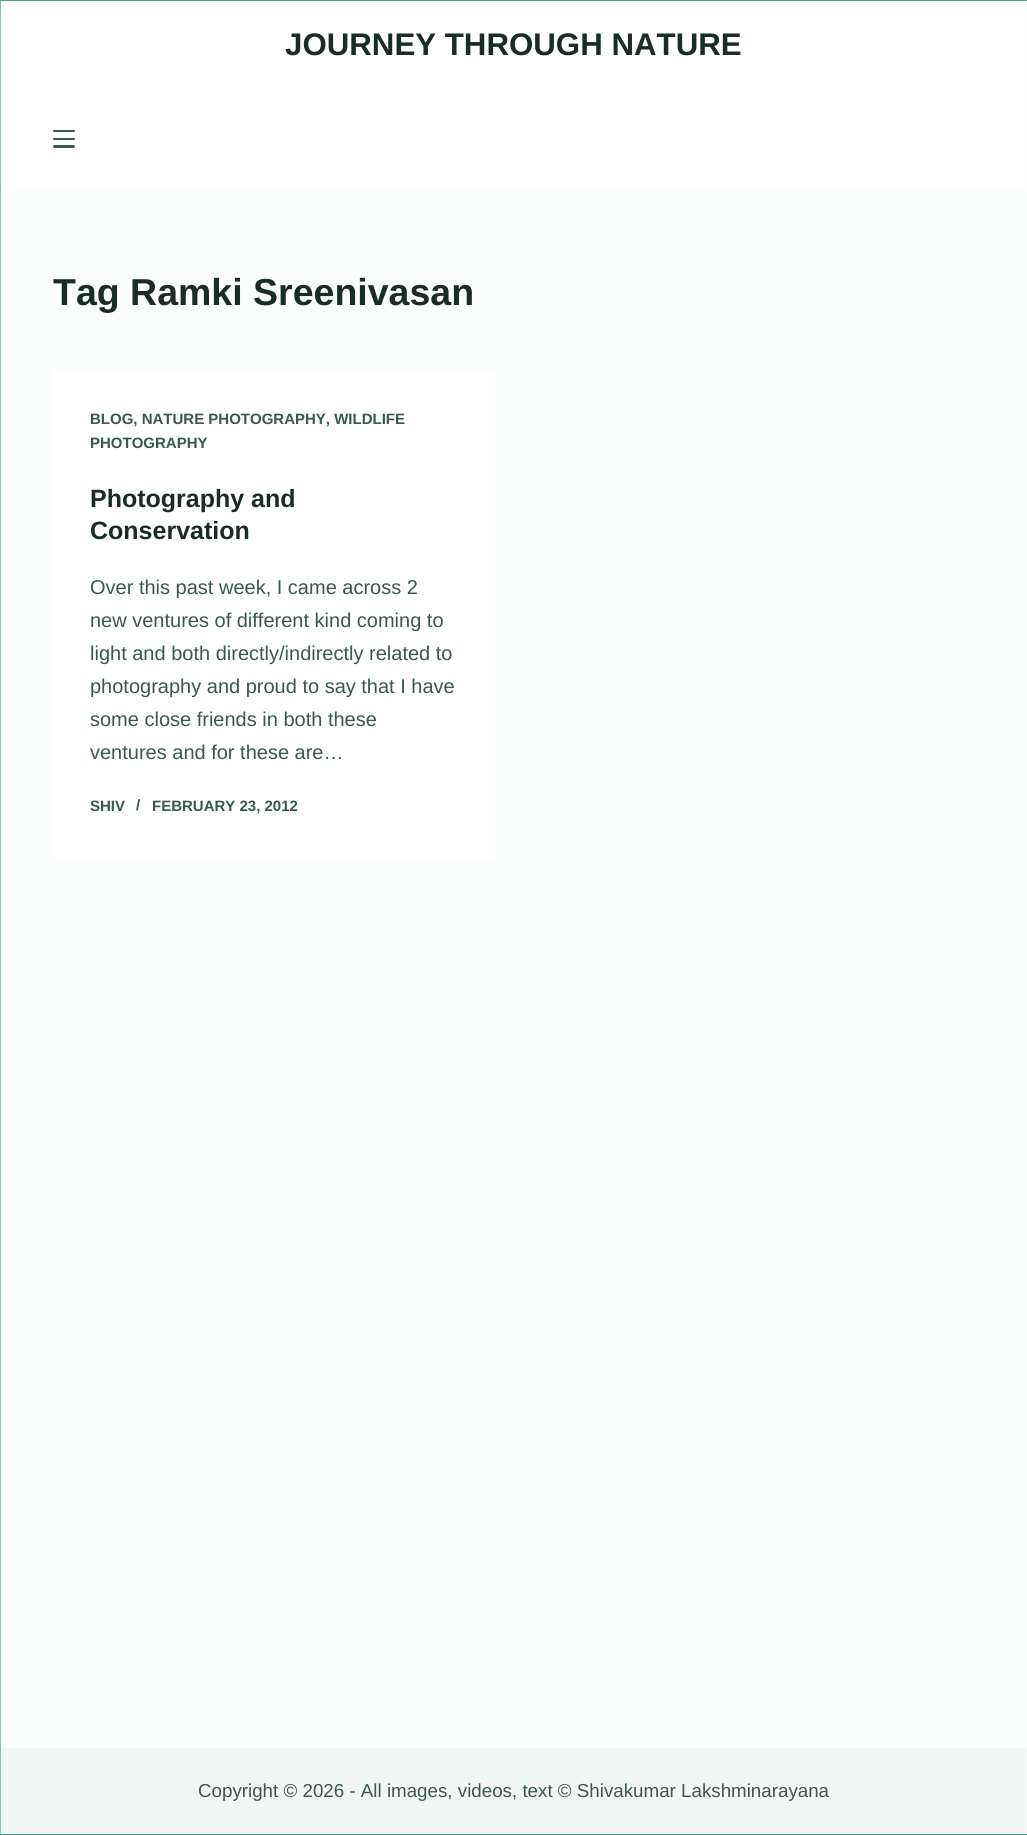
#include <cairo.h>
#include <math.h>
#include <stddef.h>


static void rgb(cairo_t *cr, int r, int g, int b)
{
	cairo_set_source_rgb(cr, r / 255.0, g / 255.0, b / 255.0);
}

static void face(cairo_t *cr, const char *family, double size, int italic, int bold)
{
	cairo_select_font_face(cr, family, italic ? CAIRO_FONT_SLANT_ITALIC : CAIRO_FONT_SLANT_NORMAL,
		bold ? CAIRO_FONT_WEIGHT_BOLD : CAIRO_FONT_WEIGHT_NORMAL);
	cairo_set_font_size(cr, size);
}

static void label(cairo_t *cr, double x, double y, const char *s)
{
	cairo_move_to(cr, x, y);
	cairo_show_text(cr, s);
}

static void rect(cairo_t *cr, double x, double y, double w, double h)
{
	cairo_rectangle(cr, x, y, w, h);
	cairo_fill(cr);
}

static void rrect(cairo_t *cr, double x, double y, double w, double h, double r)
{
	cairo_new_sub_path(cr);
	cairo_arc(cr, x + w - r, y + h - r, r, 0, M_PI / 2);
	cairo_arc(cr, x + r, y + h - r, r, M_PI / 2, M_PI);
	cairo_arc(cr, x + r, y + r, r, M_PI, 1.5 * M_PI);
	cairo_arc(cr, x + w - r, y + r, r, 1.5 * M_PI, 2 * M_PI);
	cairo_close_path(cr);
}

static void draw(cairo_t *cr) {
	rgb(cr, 251, 252, 252);
	cairo_paint(cr);
	cairo_rectangle(cr, 0.5, 0.5, 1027, 1834);
	rgb(cr, 136, 195, 180);
	cairo_set_line_width(cr, 1);
	cairo_stroke(cr);
	rgb(cr, 73, 164, 141);
	rect(cr, 0, 0, 1027, 1);
	rgb(cr, 255, 255, 255);
	rect(cr, 1, 1, 1025, 188);
	rgb(cr, 54, 89, 81);
	rrect(cr, 53, 130, 22, 2, 1);
	cairo_fill(cr);
	rrect(cr, 53, 138, 22, 2, 1);
	cairo_fill(cr);
	rrect(cr, 53, 145, 22, 3, 1.5);
	cairo_fill(cr);
	face(cr, "Liberation Sans", 31.25, 0, 1);
	rgb(cr, 25, 44, 39);
	label(cr, 285, 55, "JOURNEY THROUGH NATURE");
	face(cr, "Liberation Sans", 37.5, 0, 1);
	label(cr, 53, 305, "Tag Ramki Sreenivasan");
	rgb(cr, 255, 255, 255);
	rect(cr, 53, 370, 442, 488);
	face(cr, "Liberation Sans", 15, 0, 1);
	rgb(cr, 54, 89, 81);
	label(cr, 90, 424, "BLOG, NATURE PHOTOGRAPHY, WILDLIFE");
	label(cr, 90, 448, "PHOTOGRAPHY");
	face(cr, "Liberation Sans", 25, 0, 1);
	rgb(cr, 25, 44, 39);
	label(cr, 90, 507, "Photography and");
	label(cr, 90, 539, "Conservation");
	face(cr, "Liberation Sans", 20, 0, 0);
	rgb(cr, 54, 89, 81);
	label(cr, 90, 594, "Over this past week, I came across 2");
	label(cr, 90, 627, "new ventures of different kind coming to");
	label(cr, 90, 660, "light and both directly/indirectly related to");
	label(cr, 90, 693, "photography and proud to say that I have");
	label(cr, 90, 726, "some close friends in both these");
	label(cr, 90, 759, "ventures and for these are…");
	face(cr, "Liberation Sans", 15, 0, 1);
	label(cr, 90, 811, "SHIV");
	label(cr, 136, 810, "/");
	label(cr, 152, 811, "FEBRUARY 23, 2012");
	rgb(cr, 242, 247, 246);
	rect(cr, 1, 1748, 1025, 86);
	face(cr, "Liberation Sans", 18.75, 0, 0);
	rgb(cr, 54, 89, 81);
	label(cr, 198, 1797, "Copyright © 2026 - All images, videos, text © Shivakumar Lakshminarayana");
	rgb(cr, 73, 164, 141);
	rect(cr, 0, 1834, 1027, 1);
}

int main(void) {
	cairo_surface_t *surface = cairo_image_surface_create(CAIRO_FORMAT_RGB24, 1027, 1835);
	cairo_t *cr = cairo_create(surface);
	cairo_font_options_t *options = cairo_font_options_create();
	cairo_font_options_set_hint_metrics(options, CAIRO_HINT_METRICS_OFF);
	cairo_font_options_set_hint_style(options, CAIRO_HINT_STYLE_NONE);
	cairo_set_font_options(cr, options);
	cairo_set_miter_limit(cr, 4);
	draw(cr);
	cairo_surface_write_to_png(surface, "render.png");
	cairo_font_options_destroy(options);
	cairo_destroy(cr);
	cairo_surface_destroy(surface);
	return 0;
}
